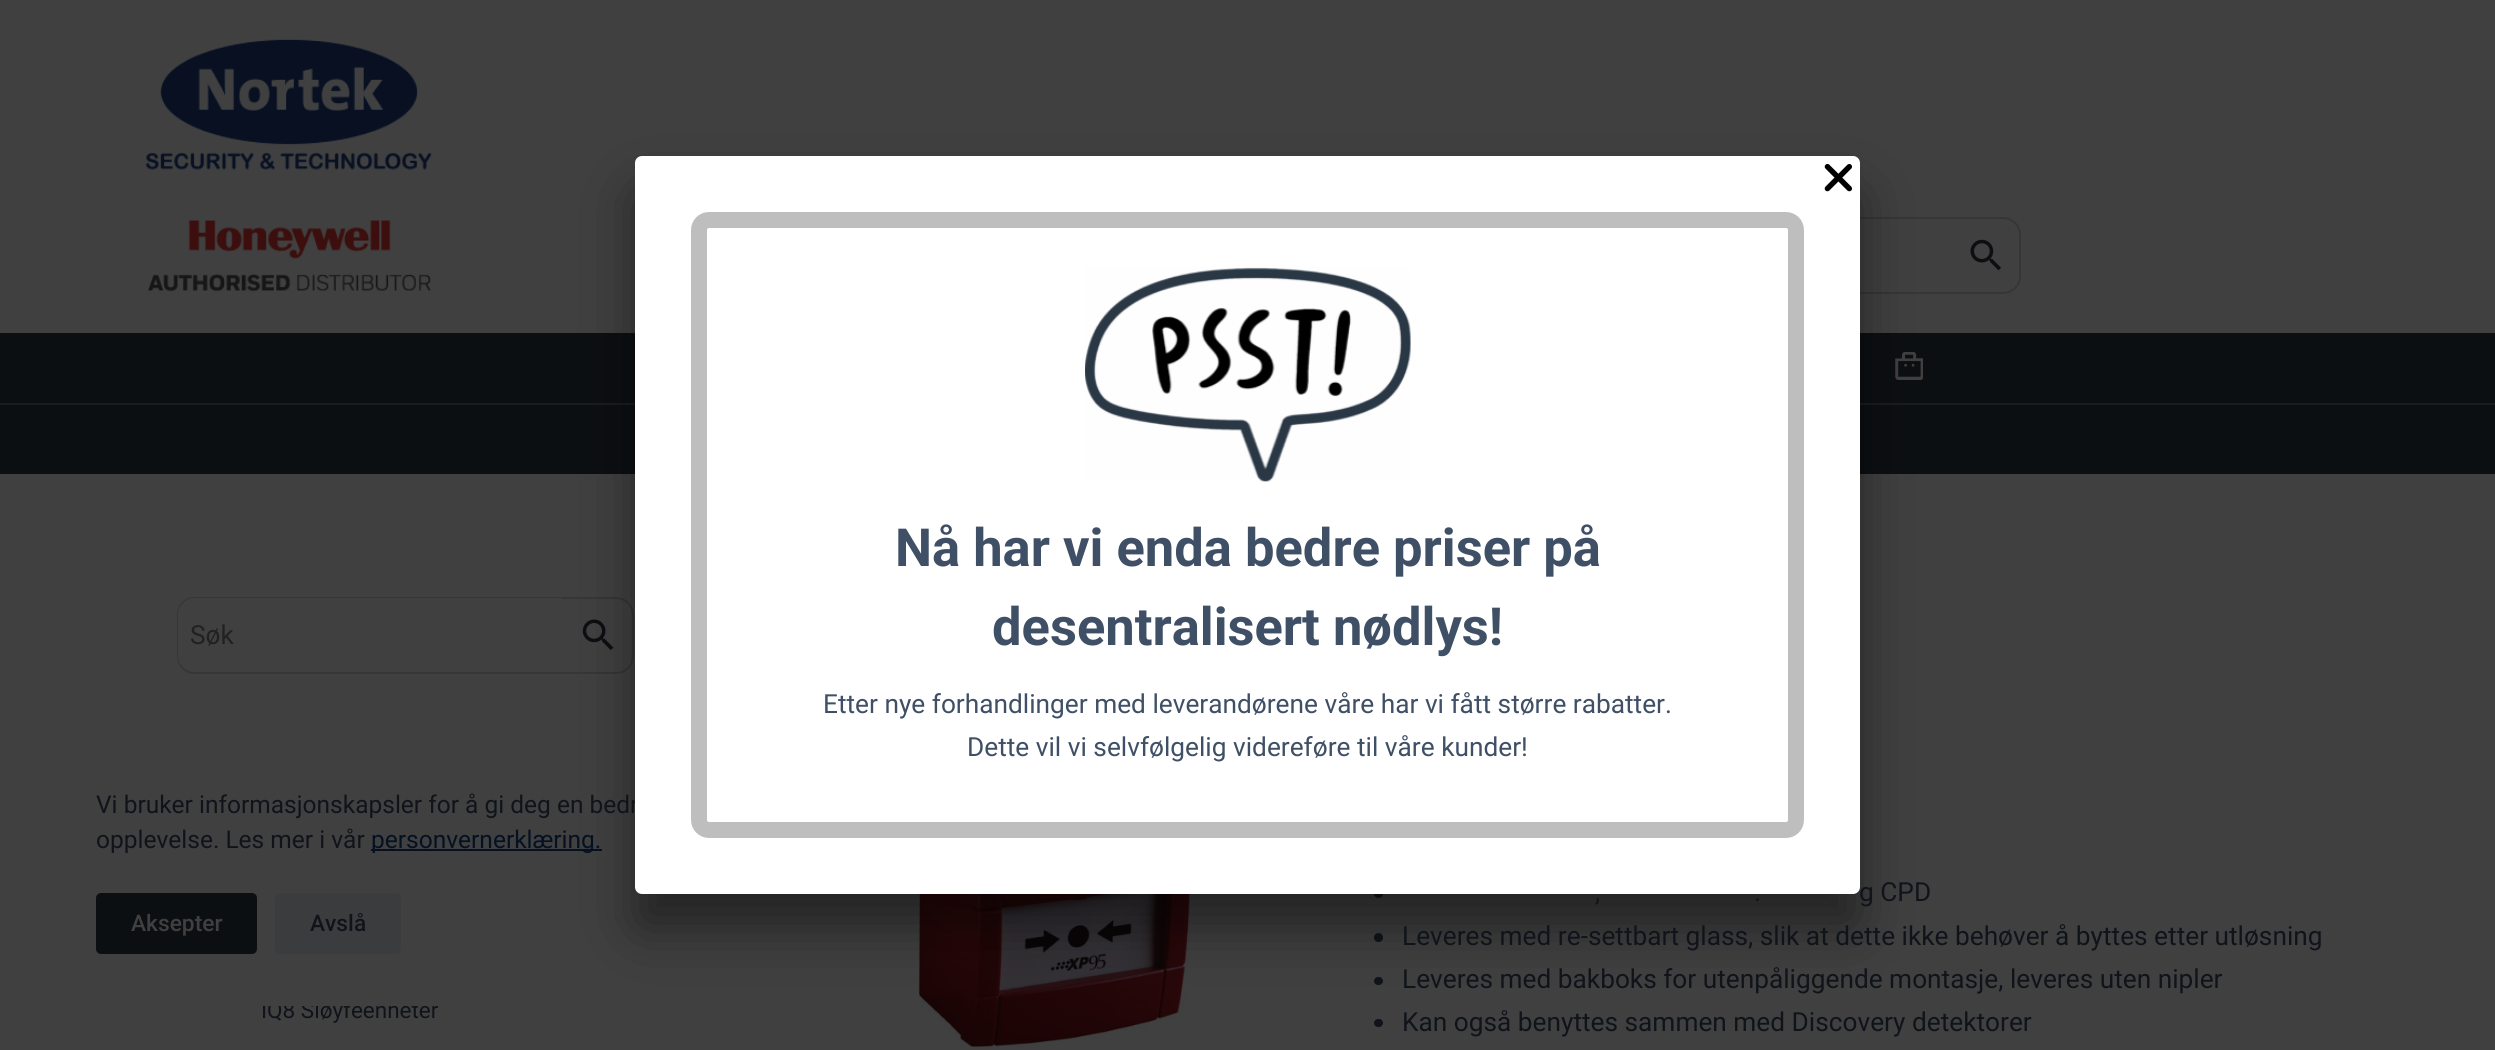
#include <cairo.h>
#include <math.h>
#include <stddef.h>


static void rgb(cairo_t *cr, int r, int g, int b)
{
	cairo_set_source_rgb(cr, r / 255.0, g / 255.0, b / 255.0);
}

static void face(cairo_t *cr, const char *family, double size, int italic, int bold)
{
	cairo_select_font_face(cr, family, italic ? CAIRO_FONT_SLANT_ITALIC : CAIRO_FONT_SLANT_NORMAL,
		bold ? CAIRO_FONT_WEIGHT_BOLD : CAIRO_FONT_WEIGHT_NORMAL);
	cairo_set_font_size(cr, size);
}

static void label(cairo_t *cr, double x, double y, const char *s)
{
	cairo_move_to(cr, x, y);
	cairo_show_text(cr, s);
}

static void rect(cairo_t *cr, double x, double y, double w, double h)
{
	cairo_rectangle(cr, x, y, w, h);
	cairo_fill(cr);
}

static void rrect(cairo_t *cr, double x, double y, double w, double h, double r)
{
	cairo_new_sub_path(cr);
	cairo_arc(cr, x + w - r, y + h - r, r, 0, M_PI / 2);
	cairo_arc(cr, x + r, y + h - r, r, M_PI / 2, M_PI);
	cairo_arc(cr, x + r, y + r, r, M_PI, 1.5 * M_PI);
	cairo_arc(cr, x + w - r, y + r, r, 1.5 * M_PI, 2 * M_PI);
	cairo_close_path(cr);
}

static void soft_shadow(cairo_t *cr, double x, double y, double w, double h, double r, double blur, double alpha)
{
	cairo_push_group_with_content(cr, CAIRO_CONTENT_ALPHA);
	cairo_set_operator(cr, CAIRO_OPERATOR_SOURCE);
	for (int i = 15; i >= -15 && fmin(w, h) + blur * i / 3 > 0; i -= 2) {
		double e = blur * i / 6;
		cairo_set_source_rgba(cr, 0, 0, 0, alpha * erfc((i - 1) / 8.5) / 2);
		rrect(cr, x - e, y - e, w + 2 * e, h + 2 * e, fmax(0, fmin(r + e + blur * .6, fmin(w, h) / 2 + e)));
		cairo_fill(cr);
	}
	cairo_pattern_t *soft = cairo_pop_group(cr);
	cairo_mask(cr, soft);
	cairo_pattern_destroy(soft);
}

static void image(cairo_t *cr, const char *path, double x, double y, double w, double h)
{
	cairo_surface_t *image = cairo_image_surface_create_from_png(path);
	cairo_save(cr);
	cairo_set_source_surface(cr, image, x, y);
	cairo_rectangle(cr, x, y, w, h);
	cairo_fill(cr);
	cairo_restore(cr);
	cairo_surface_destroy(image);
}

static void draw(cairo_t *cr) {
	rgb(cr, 64, 64, 64);
	cairo_paint(cr);
	cairo_new_path(cr);
	cairo_move_to(cr, 1949, 218);
	cairo_line_to(cr, 2003, 218);
	cairo_curve_to(cr, 2012.5, 218, 2020, 225.5, 2020, 235);
	cairo_line_to(cr, 2020, 276);
	cairo_curve_to(cr, 2020, 285.5, 2012.5, 293, 2003, 293);
	cairo_line_to(cr, 1949, 293);
	cairo_close_path(cr);
	rgb(cr, 54, 54, 54);
	cairo_stroke(cr);
	rgb(cr, 64, 64, 64);
	rect(cr, 1948, 219, 2, 73);
	rgb(cr, 54, 54, 54);
	cairo_set_fill_rule(cr, CAIRO_FILL_RULE_EVEN_ODD);
	cairo_new_path(cr);
	cairo_move_to(cr, 1092, 217);
	cairo_line_to(cr, 1950, 217);
	cairo_line_to(cr, 1950, 294);
	cairo_line_to(cr, 1092, 294);
	cairo_curve_to(cr, 1082, 294, 1074, 286, 1074, 276);
	cairo_line_to(cr, 1074, 234);
	cairo_curve_to(cr, 1074, 225, 1082, 217, 1092, 217);
	cairo_close_path(cr);
	cairo_move_to(cr, 1092, 219);
	cairo_line_to(cr, 1950, 219);
	cairo_line_to(cr, 1950, 292);
	cairo_line_to(cr, 1092, 292);
	cairo_curve_to(cr, 1072, 292, 1076, 268, 1076, 256);
	cairo_curve_to(cr, 1076, 243, 1072, 219, 1092, 219);
	cairo_close_path(cr);
	cairo_fill(cr);
	rgb(cr, 12, 15, 18);
	rect(cr, 0, 333, 2495, 70);
	image(cr, "image4.png", 1895, 352, 28, 28);
	rect(cr, 0, 405, 2495, 69);
	rgb(cr, 26, 29, 32);
	rect(cr, 0, 403, 2495, 2);
	cairo_new_path(cr);
	cairo_move_to(cr, 561, 598);
	cairo_line_to(cr, 616, 598);
	cairo_curve_to(cr, 625.5, 598, 633, 605.5, 633, 615);
	cairo_line_to(cr, 633, 656);
	cairo_curve_to(cr, 633, 665.5, 625.5, 673, 616, 673);
	cairo_line_to(cr, 561, 673);
	cairo_close_path(cr);
	rgb(cr, 54, 54, 54);
	cairo_stroke(cr);
	rgb(cr, 64, 64, 64);
	cairo_new_path(cr);
	cairo_move_to(cr, 195, 597);
	cairo_line_to(cr, 562, 597);
	cairo_line_to(cr, 562, 674);
	cairo_line_to(cr, 195, 674);
	cairo_curve_to(cr, 185, 674, 177, 666, 177, 656);
	cairo_line_to(cr, 177, 615);
	cairo_curve_to(cr, 177, 605, 185, 597, 195, 597);
	cairo_close_path(cr);
	cairo_fill(cr);
	rgb(cr, 54, 54, 54);
	cairo_new_path(cr);
	cairo_move_to(cr, 194, 597);
	cairo_line_to(cr, 562, 597);
	cairo_line_to(cr, 562, 674);
	cairo_line_to(cr, 194, 674);
	cairo_curve_to(cr, 185, 674, 177, 666, 177, 656);
	cairo_line_to(cr, 177, 614);
	cairo_curve_to(cr, 177, 605, 185, 597, 194, 597);
	cairo_close_path(cr);
	cairo_move_to(cr, 194, 598);
	cairo_line_to(cr, 562, 598);
	cairo_line_to(cr, 562, 672);
	cairo_line_to(cr, 194, 672);
	cairo_curve_to(cr, 186, 672, 178, 665, 178, 656);
	cairo_line_to(cr, 178, 614);
	cairo_curve_to(cr, 178, 606, 186, 598, 194, 598);
	cairo_close_path(cr);
	cairo_fill(cr);
	image(cr, "image5.png", 582, 619, 32, 31);
	image(cr, "image6.png", 918, 894, 272, 153);
	rgb(cr, 16, 20, 26);
	cairo_arc(cr, 1378.5, 893.5, 4.5, 0, 2 * M_PI);
	cairo_fill(cr);
	cairo_arc(cr, 1378.5, 937.5, 4.5, 0, 2 * M_PI);
	cairo_fill(cr);
	rrect(cr, 1374, 977, 9, 8, 4);
	cairo_fill(cr);
	face(cr, "Roboto", 22.5, 0, 0);
	label(cr, 261, 1018, "IQ8 Sløyfeenheter");
	rgb(cr, 64, 64, 64);
	rrect(cr, 44, 737, 700, 269, 5);
	cairo_fill(cr);
	rgb(cr, 5, 17, 33);
	rect(cr, 371, 849, 231, 2);
	rgb(cr, 0, 0, 0);
	soft_shadow(cr, 635, 191, 1225, 738, 7, 26, 0.44);
	face(cr, "Roboto", 26.25, 0, 0);
	rgb(cr, 16, 20, 26);
	label(cr, 1859, 901, "g CPD");
	face(cr, "Roboto", 24.5, 0, 0);
	label(cr, 96, 813, "Vi bruker informasjonskapsler for å gi deg en bedr");
	rgb(cr, 255, 255, 255);
	rrect(cr, 635, 156, 1225, 738, 7);
	cairo_fill(cr);
	image(cr, "image0.png", 1824, 164, 28, 28);
	rrect(cr, 699, 220, 1097, 610, 10);
	rgb(cr, 190, 190, 190);
	cairo_set_line_width(cr, 16);
	cairo_stroke(cr);
	image(cr, "image1.png", 1085, 267, 326, 215);
	face(cr, "Roboto", 52.5, 0, 1);
	rgb(cr, 63, 79, 102);
	label(cr, 895, 566, "Nå har vi enda bedre priser på");
	label(cr, 992, 645, "desentralisert nødlys!");
	face(cr, "Roboto", 26.25, 0, 0);
	label(cr, 823, 713, "Etter nye forhandlinger med leverandørene våre har vi fått større rabatter.");
	label(cr, 967, 756, "Dette vil vi selvfølgelig videreføre til våre kunder!");
	image(cr, "image2.png", 145, 39, 287, 253);
	image(cr, "image3.png", 1970, 239, 31, 32);
	rgb(cr, 33, 33, 33);
	label(cr, 190, 644, "Søk");
	rgb(cr, 16, 20, 26);
	label(cr, 1595, 901, ",");
	label(cr, 1754, 901, ".");
	label(cr, 1402, 945, "Leveres med re-settbart glass, slik at dette ikke behøver å byttes etter utløsning");
	label(cr, 1402, 988, "Leveres med bakboks for utenpåliggende montasje, leveres uten nipler");
	rrect(cr, 1374, 1019, 9, 8, 4);
	cairo_fill(cr);
	label(cr, 1402, 1031, "Kan også benyttes sammen med Discovery detektorer");
	face(cr, "Roboto", 24.5, 0, 0);
	label(cr, 96, 848, "opplevelse. Les mer i vår");
	rgb(cr, 5, 17, 33);
	label(cr, 371, 848, "personvernerklæring.");
	rgb(cr, 12, 15, 18);
	rrect(cr, 96, 893, 161, 61, 5);
	cairo_fill(cr);
	face(cr, "Roboto Medium", 22.75, 0, 0);
	rgb(cr, 64, 64, 64);
	label(cr, 131, 931, "Aksepter");
	rgb(cr, 59, 60, 61);
	rrect(cr, 275, 893, 126, 61, 5);
	cairo_fill(cr);
	rgb(cr, 16, 20, 26);
	label(cr, 310, 931, "Avslå");
}

int main(void) {
	cairo_surface_t *surface = cairo_image_surface_create(CAIRO_FORMAT_RGB24, 2495, 1050);
	cairo_t *cr = cairo_create(surface);
	cairo_font_options_t *options = cairo_font_options_create();
	cairo_font_options_set_hint_metrics(options, CAIRO_HINT_METRICS_OFF);
	cairo_font_options_set_hint_style(options, CAIRO_HINT_STYLE_NONE);
	cairo_set_font_options(cr, options);
	cairo_set_miter_limit(cr, 4);
	draw(cr);
	cairo_surface_write_to_png(surface, "render.png");
	cairo_font_options_destroy(options);
	cairo_destroy(cr);
	cairo_surface_destroy(surface);
	return 0;
}
